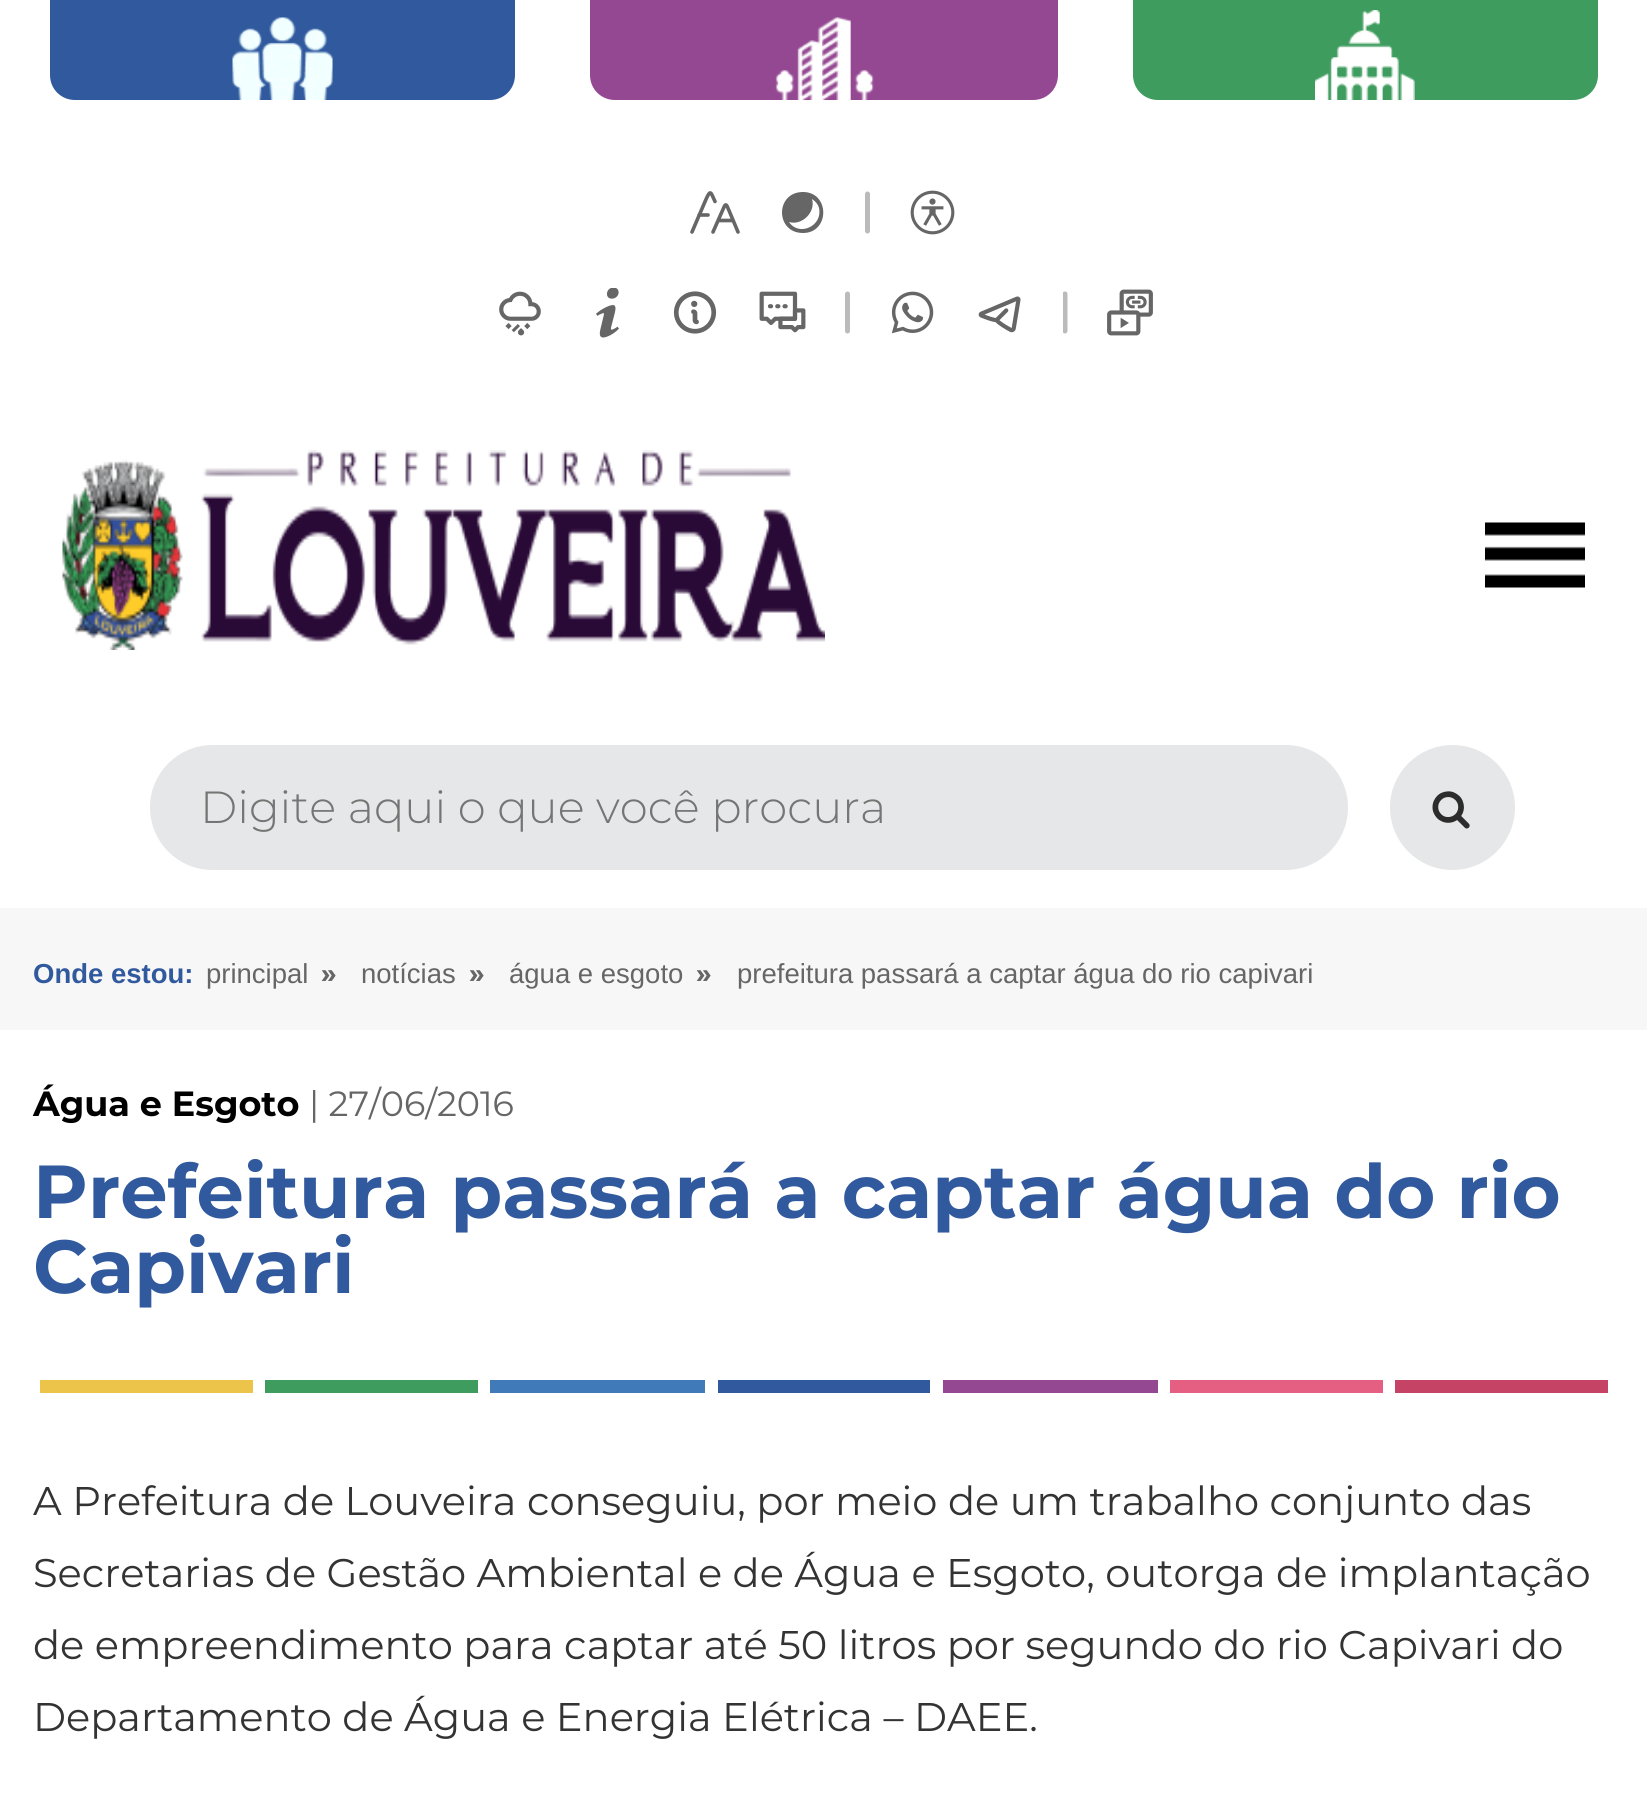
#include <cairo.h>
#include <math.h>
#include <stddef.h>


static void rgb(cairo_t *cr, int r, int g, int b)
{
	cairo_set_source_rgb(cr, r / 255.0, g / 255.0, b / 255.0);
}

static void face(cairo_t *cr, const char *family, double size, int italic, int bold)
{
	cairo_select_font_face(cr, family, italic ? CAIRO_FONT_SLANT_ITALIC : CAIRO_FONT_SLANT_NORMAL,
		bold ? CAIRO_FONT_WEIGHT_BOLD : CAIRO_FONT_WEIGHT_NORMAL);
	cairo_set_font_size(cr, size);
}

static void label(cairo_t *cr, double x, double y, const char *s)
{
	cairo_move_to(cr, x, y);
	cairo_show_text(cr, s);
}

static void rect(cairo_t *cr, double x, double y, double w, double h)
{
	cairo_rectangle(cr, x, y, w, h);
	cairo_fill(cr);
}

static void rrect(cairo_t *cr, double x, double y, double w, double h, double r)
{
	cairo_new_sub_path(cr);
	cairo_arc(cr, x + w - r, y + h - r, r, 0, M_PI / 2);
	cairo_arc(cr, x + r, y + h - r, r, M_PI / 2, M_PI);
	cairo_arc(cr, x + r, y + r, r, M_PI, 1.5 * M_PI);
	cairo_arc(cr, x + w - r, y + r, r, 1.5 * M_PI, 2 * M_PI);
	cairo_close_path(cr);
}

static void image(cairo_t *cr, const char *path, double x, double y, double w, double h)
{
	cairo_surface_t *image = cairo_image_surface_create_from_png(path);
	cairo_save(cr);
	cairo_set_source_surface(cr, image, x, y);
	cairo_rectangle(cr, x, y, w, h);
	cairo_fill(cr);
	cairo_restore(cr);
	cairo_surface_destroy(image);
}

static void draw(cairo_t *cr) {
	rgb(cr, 255, 255, 255);
	cairo_paint(cr);
	rgb(cr, 49, 89, 158);
	cairo_new_path(cr);
	cairo_move_to(cr, 50, 0);
	cairo_line_to(cr, 515, 0);
	cairo_line_to(cr, 515, 75);
	cairo_curve_to(cr, 515, 89, 504, 100, 490, 100);
	cairo_line_to(cr, 75, 100);
	cairo_curve_to(cr, 61, 100, 50, 89, 50, 75);
	cairo_close_path(cr);
	cairo_fill(cr);
	image(cr, "image0.png", 232, 17, 101, 83);
	rgb(cr, 148, 72, 146);
	cairo_new_path(cr);
	cairo_move_to(cr, 590, 0);
	cairo_line_to(cr, 1058, 0);
	cairo_line_to(cr, 1058, 75);
	cairo_curve_to(cr, 1058, 89, 1047, 100, 1033, 100);
	cairo_line_to(cr, 615, 100);
	cairo_curve_to(cr, 601, 100, 590, 89, 590, 75);
	cairo_close_path(cr);
	cairo_fill(cr);
	image(cr, "image1.png", 775, 17, 99, 83);
	rgb(cr, 62, 156, 94);
	cairo_new_path(cr);
	cairo_move_to(cr, 1133, 0);
	cairo_line_to(cr, 1598, 0);
	cairo_line_to(cr, 1598, 75);
	cairo_curve_to(cr, 1598, 89, 1587, 100, 1573, 100);
	cairo_line_to(cr, 1158, 100);
	cairo_curve_to(cr, 1144, 100, 1133, 89, 1133, 75);
	cairo_close_path(cr);
	cairo_fill(cr);
	image(cr, "image2.png", 1315, 10, 100, 90);
	cairo_new_path(cr);
	cairo_move_to(cr, 713, 232);
	cairo_line_to(cr, 722.5, 210.5);
	cairo_curve_to(cr, 725.5, 203, 726, 203, 729, 210.5);
	cairo_line_to(cr, 738, 232);
	cairo_move_to(cr, 718.5, 220.5);
	cairo_line_to(cr, 733, 220.5);
	cairo_move_to(cr, 692, 232);
	cairo_line_to(cr, 705.5, 200.5);
	cairo_curve_to(cr, 710.5, 189, 710.5, 191.5, 715, 201.5);
	cairo_move_to(cr, 699, 215);
	cairo_line_to(cr, 708, 215);
	rgb(cr, 102, 102, 102);
	cairo_set_line_width(cr, 3.6);
	cairo_set_line_cap(cr, CAIRO_LINE_CAP_ROUND);
	cairo_set_line_join(cr, CAIRO_LINE_JOIN_ROUND);
	cairo_stroke(cr);
	cairo_new_path(cr);
	cairo_move_to(cr, 803, 233);
	cairo_curve_to(cr, 775, 233, 775, 192, 803, 192);
	cairo_curve_to(cr, 830, 192, 830, 233, 803, 233);
	cairo_close_path(cr);
	cairo_move_to(cr, 789, 222);
	cairo_curve_to(cr, 799, 237, 823, 226, 819, 208);
	cairo_curve_to(cr, 818, 204, 815, 201, 812, 199);
	cairo_curve_to(cr, 816, 212, 802, 226, 789, 222);
	cairo_close_path(cr);
	cairo_fill(cr);
	cairo_new_path(cr);
	cairo_move_to(cr, 867.5, 194);
	cairo_line_to(cr, 867.5, 231);
	rgb(cr, 187, 187, 187);
	cairo_set_line_width(cr, 5);
	cairo_set_line_join(cr, CAIRO_LINE_JOIN_MITER);
	cairo_stroke(cr);
	image(cr, "image3.png", 910, 190, 45, 45);
	image(cr, "image4.png", 499, 291, 42, 45);
	image(cr, "image5.png", 596, 288, 23, 50);
	image(cr, "image6.png", 673, 291, 44, 43);
	image(cr, "image7.png", 759, 291, 47, 42);
	cairo_new_path(cr);
	cairo_move_to(cr, 847.5, 294);
	cairo_line_to(cr, 847.5, 331);
	cairo_stroke(cr);
	image(cr, "image8.png", 891, 291, 43, 43);
	image(cr, "image9.png", 978, 296, 43, 37);
	cairo_save(cr);
	cairo_rectangle(cr, 1063, 290, 5, 45);
	cairo_clip(cr);
	cairo_new_path(cr);
	cairo_move_to(cr, 1065, 294);
	cairo_line_to(cr, 1065, 331);
	cairo_stroke(cr);
	cairo_restore(cr);
	image(cr, "image10.png", 1107, 289, 46, 47);
	image(cr, "image11.png", 62, 450, 763, 200);
	image(cr, "image12.png", 1485, 522, 100, 66);
	rgb(cr, 230, 231, 232);
	rrect(cr, 150, 745, 1198, 125, 62.5);
	cairo_fill(cr);
	face(cr, "Montserrat Light", 45, 0, 0);
	rgb(cr, 117, 117, 117);
	label(cr, 200, 823, "Digite aqui o que você procura");
	rgb(cr, 230, 231, 232);
	cairo_new_path(cr);
	cairo_arc(cr, 1452.5, 807.5, 62.5, 0, 2 * M_PI);
	cairo_fill(cr);
	image(cr, "image13.png", 1432, 791, 38, 38);
	rgb(cr, 247, 247, 247);
	rect(cr, 0, 908, 1647, 122);
	face(cr, "Liberation Sans", 27.5, 0, 1);
	rgb(cr, 49, 89, 158);
	label(cr, 33, 983, "Onde estou:");
	face(cr, "Liberation Sans", 27.5, 0, 0);
	rgb(cr, 102, 102, 102);
	label(cr, 206, 983, "principal");
	face(cr, "Montserrat", 27.5, 0, 1);
	label(cr, 321, 983, "»");
	face(cr, "Liberation Sans", 27.5, 0, 0);
	label(cr, 361, 983, "notícias");
	face(cr, "Montserrat", 27.5, 0, 1);
	label(cr, 469, 983, "»");
	face(cr, "Liberation Sans", 27.5, 0, 0);
	label(cr, 509, 983, "água e esgoto");
	face(cr, "Montserrat", 27.5, 0, 1);
	label(cr, 696, 983, "»");
	face(cr, "Liberation Sans", 27.5, 0, 0);
	label(cr, 737, 983, "prefeitura passará a captar água do rio capivari");
	face(cr, "Montserrat", 35, 0, 1);
	rgb(cr, 0, 0, 0);
	label(cr, 33, 1116, "Água e Esgoto");
	face(cr, "Montserrat", 35, 0, 0);
	rgb(cr, 102, 102, 102);
	label(cr, 309, 1116, "| 27/06/2016");
	face(cr, "Montserrat", 75, 0, 1);
	rgb(cr, 49, 89, 158);
	label(cr, 33, 1218, "Prefeitura passará a captar água do rio");
	label(cr, 33, 1293, "Capivari");
	rgb(cr, 236, 196, 74);
	rect(cr, 40, 1380, 213, 13);
	rgb(cr, 62, 156, 94);
	rect(cr, 265, 1380, 213, 13);
	rgb(cr, 64, 122, 185);
	rect(cr, 490, 1380, 215, 13);
	rgb(cr, 49, 89, 158);
	rect(cr, 718, 1380, 212, 13);
	rgb(cr, 148, 72, 146);
	rect(cr, 943, 1380, 215, 13);
	rgb(cr, 228, 95, 130);
	rect(cr, 1170, 1380, 213, 13);
	rgb(cr, 197, 67, 101);
	rect(cr, 1395, 1380, 213, 13);
	face(cr, "Montserrat", 40, 0, 0);
	rgb(cr, 51, 51, 51);
	label(cr, 33, 1515, "A Prefeitura de Louveira conseguiu, por meio de um trabalho conjunto das");
	label(cr, 33, 1587, "Secretarias de Gestão Ambiental e de Água e Esgoto, outorga de implantação");
	label(cr, 33, 1659, "de empreendimento para captar até 50 litros por segundo do rio Capivari do");
	label(cr, 33, 1731, "Departamento de Água e Energia Elétrica – DAEE.");
}

int main(void) {
	cairo_surface_t *surface = cairo_image_surface_create(CAIRO_FORMAT_RGB24, 1647, 1800);
	cairo_t *cr = cairo_create(surface);
	cairo_font_options_t *options = cairo_font_options_create();
	cairo_font_options_set_hint_metrics(options, CAIRO_HINT_METRICS_OFF);
	cairo_font_options_set_hint_style(options, CAIRO_HINT_STYLE_NONE);
	cairo_set_font_options(cr, options);
	cairo_set_miter_limit(cr, 4);
	draw(cr);
	cairo_surface_write_to_png(surface, "render.png");
	cairo_font_options_destroy(options);
	cairo_destroy(cr);
	cairo_surface_destroy(surface);
	return 0;
}
